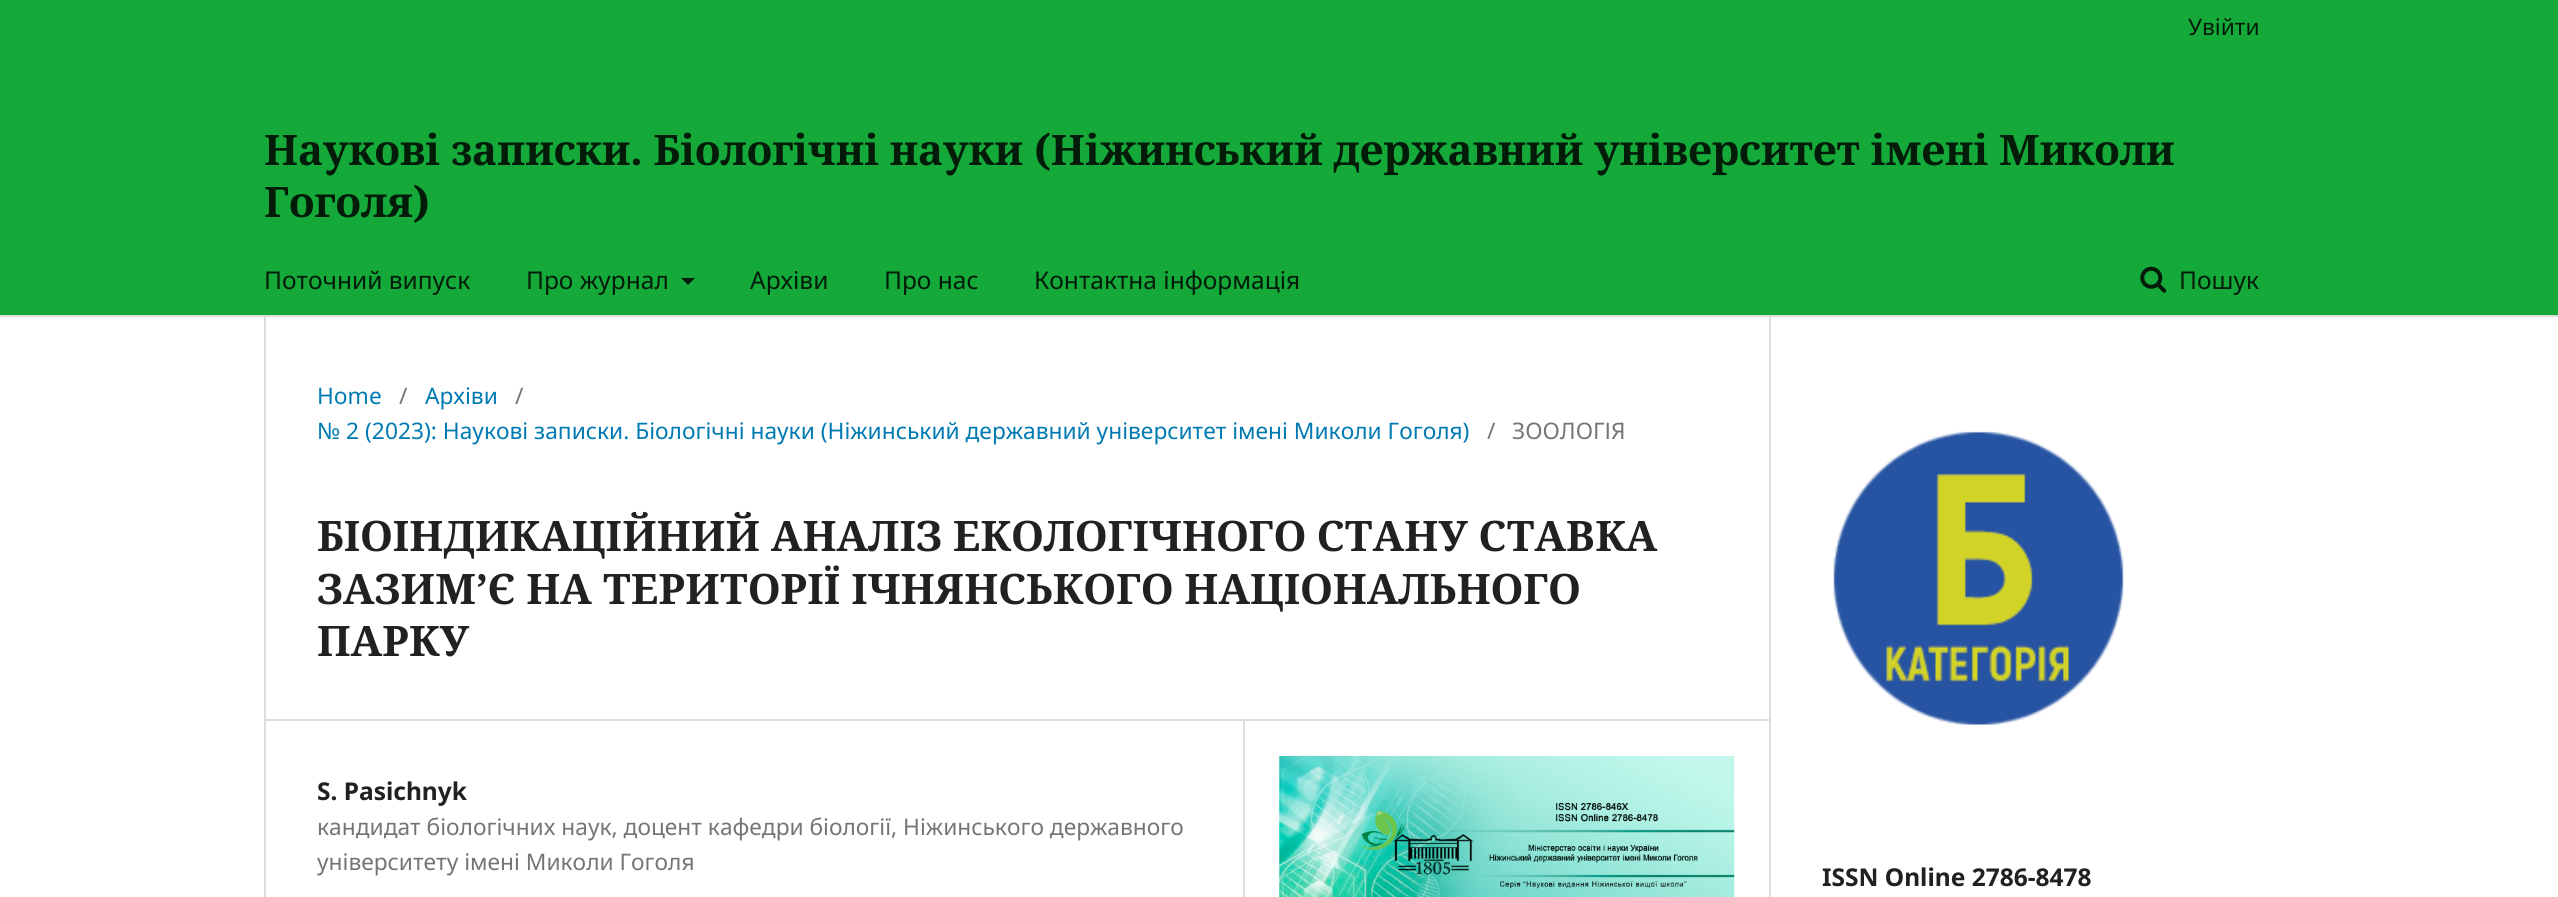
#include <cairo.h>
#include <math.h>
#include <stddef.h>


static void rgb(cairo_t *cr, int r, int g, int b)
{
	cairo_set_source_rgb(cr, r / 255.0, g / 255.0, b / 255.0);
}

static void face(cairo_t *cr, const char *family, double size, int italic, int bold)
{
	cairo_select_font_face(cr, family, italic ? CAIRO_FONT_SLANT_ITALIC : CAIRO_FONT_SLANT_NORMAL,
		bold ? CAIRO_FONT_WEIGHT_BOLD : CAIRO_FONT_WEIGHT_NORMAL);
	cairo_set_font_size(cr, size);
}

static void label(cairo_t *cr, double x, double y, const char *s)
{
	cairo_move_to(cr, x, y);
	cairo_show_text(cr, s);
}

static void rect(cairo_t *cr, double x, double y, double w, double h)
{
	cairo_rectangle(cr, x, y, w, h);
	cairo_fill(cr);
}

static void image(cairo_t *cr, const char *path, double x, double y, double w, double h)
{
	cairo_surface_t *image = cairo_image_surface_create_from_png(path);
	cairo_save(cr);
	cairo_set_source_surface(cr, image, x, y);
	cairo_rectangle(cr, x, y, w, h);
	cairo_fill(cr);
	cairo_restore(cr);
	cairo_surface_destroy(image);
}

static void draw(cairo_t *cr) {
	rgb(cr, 255, 255, 255);
	cairo_paint(cr);
	rgb(cr, 20, 169, 57);
	rect(cr, 0, 0, 2558, 315);
	rgb(cr, 221, 221, 221);
	rect(cr, 0, 315, 2558, 2);
	face(cr, "Noto Sans", 22.75, 0, 0);
	rgb(cr, 3, 27, 9);
	label(cr, 2188, 35, "Увійти");
	face(cr, "Noto Serif", 42, 0, 1);
	label(cr, 264, 165, "Наукові записки. Біологічні науки (Ніжинський державний університет імені Миколи");
	label(cr, 264, 217, "Гоголя)");
	face(cr, "Noto Sans", 24.5, 0, 0);
	label(cr, 264, 289, "Поточний випуск");
	label(cr, 526, 289, "Про журнал");
	cairo_new_path(cr);
	cairo_move_to(cr, 681, 278);
	cairo_line_to(cr, 695, 278);
	cairo_line_to(cr, 688, 285);
	cairo_close_path(cr);
	cairo_fill(cr);
	label(cr, 750, 289, "Архіви");
	label(cr, 884, 289, "Про нас");
	label(cr, 1034, 289, "Контактна інформація");
	image(cr, "image0.png", 2140, 266, 27, 27);
	label(cr, 2179, 289, "Пошук");
	rgb(cr, 221, 221, 221);
	rect(cr, 264, 719, 1505, 2);
	rect(cr, 264, 317, 2, 580);
	face(cr, "Noto Sans", 22.75, 0, 0);
	rgb(cr, 0, 122, 178);
	label(cr, 317, 404, "Home");
	rgb(cr, 117, 117, 117);
	label(cr, 399, 404, "/");
	rgb(cr, 0, 122, 178);
	label(cr, 425, 404, "Архіви");
	rgb(cr, 117, 117, 117);
	label(cr, 515, 404, "/");
	rgb(cr, 0, 122, 178);
	label(cr, 317, 439, "№ 2 (2023): Наукові записки. Біологічні науки (Ніжинський державний університет імені Миколи Гоголя)");
	rgb(cr, 117, 117, 117);
	label(cr, 1487, 439, "/");
	label(cr, 1512, 439, "ЗООЛОГІЯ");
	face(cr, "Noto Serif", 42, 0, 1);
	rgb(cr, 33, 33, 33);
	label(cr, 317, 551, "БІОІНДИКАЦІЙНИЙ АНАЛІЗ ЕКОЛОГІЧНОГО СТАНУ СТАВКА");
	label(cr, 317, 604, "ЗАЗИМ’Є НА ТЕРИТОРІЇ ІЧНЯНСЬКОГО НАЦІОНАЛЬНОГО");
	label(cr, 317, 656, "ПАРКУ");
	rgb(cr, 221, 221, 221);
	rect(cr, 1243, 721, 2, 176);
	face(cr, "Noto Sans", 24.5, 0, 1);
	rgb(cr, 33, 33, 33);
	label(cr, 317, 800, "S. Pasichnyk");
	face(cr, "Noto Sans", 22.75, 0, 0);
	rgb(cr, 117, 117, 117);
	label(cr, 317, 835, "кандидат біологічних наук, доцент кафедри біології, Ніжинського державного");
	label(cr, 317, 870, "університету імені Миколи Гоголя");
	image(cr, "image1.png", 1279, 756, 456, 141);
	rgb(cr, 221, 221, 221);
	rect(cr, 1769, 317, 2, 580);
	image(cr, "image2.png", 1833, 431, 291, 294);
	face(cr, "Noto Sans", 24.5, 0, 1);
	rgb(cr, 33, 33, 33);
	label(cr, 1822, 886, "ISSN Online 2786-8478");
}

int main(void) {
	cairo_surface_t *surface = cairo_image_surface_create(CAIRO_FORMAT_RGB24, 2558, 897);
	cairo_t *cr = cairo_create(surface);
	cairo_font_options_t *options = cairo_font_options_create();
	cairo_font_options_set_hint_metrics(options, CAIRO_HINT_METRICS_OFF);
	cairo_font_options_set_hint_style(options, CAIRO_HINT_STYLE_NONE);
	cairo_set_font_options(cr, options);
	cairo_set_miter_limit(cr, 4);
	draw(cr);
	cairo_surface_write_to_png(surface, "render.png");
	cairo_font_options_destroy(options);
	cairo_destroy(cr);
	cairo_surface_destroy(surface);
	return 0;
}
